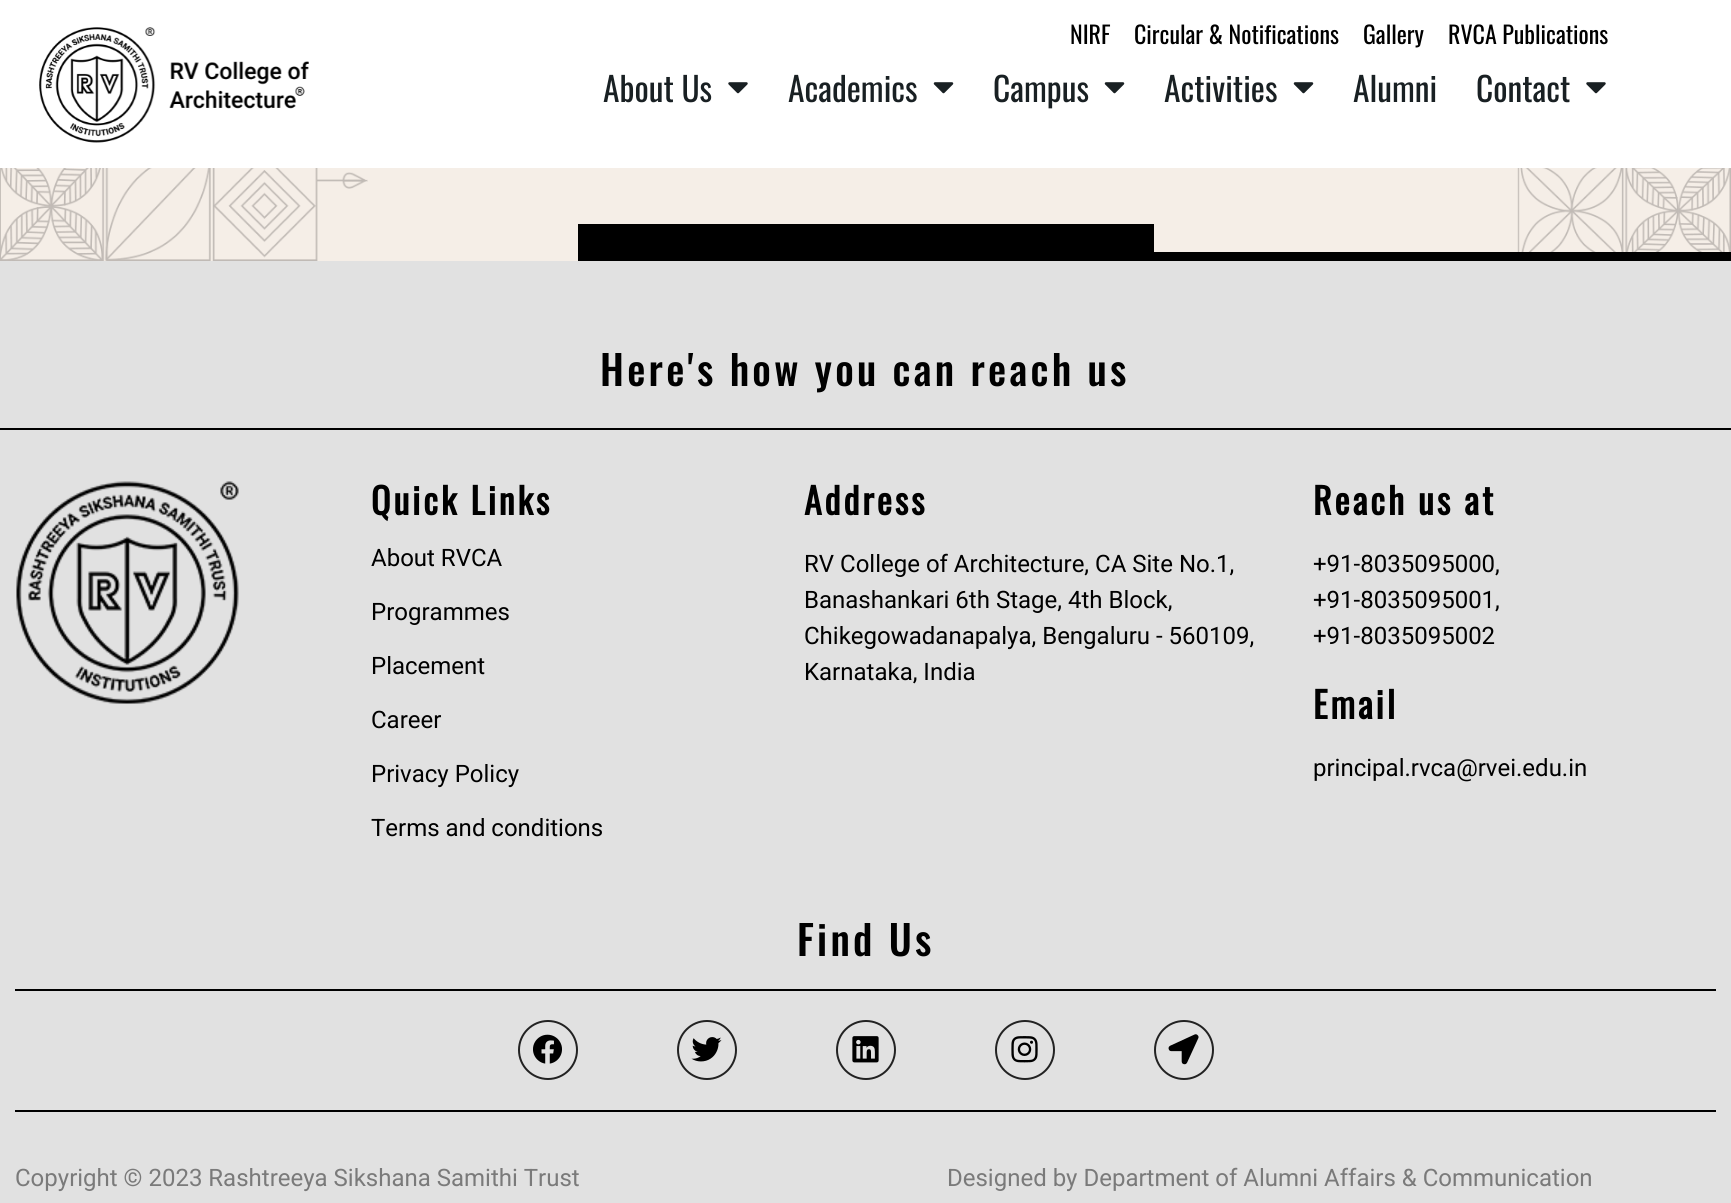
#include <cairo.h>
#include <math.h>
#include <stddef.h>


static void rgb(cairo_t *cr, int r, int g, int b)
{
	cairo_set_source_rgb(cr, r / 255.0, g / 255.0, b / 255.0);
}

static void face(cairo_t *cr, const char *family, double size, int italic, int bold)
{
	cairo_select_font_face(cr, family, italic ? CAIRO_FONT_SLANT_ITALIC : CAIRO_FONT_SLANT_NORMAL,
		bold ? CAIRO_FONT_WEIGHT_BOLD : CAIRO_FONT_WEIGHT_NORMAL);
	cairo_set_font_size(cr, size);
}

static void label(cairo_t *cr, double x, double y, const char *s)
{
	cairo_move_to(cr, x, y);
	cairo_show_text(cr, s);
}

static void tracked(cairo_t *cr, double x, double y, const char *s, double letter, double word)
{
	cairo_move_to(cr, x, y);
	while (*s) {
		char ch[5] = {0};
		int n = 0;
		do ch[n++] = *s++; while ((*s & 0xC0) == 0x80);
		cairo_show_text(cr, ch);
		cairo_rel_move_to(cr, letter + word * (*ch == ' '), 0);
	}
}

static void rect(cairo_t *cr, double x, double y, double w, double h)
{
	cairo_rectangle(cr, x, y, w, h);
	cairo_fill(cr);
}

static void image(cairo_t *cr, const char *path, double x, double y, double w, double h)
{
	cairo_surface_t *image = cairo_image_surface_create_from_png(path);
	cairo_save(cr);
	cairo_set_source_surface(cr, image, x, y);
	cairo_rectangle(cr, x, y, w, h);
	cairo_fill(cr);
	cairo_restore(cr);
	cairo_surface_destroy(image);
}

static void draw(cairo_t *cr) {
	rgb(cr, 245, 238, 231);
	cairo_paint(cr);
	rgb(cr, 255, 255, 255);
	rect(cr, 0, 0, 1731, 168);
	image(cr, "image0.png", 39, 27, 270, 116);
	face(cr, "Oswald", 24, 0, 0);
	rgb(cr, 0, 0, 0);
	label(cr, 1070, 44, "NIRF");
	label(cr, 1134, 44, "Circular & Notifications");
	label(cr, 1363, 44, "Gallery");
	label(cr, 1448, 44, "RVCA Publications");
	face(cr, "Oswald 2", 33.5, 0, 0);
	rgb(cr, 25, 32, 35);
	label(cr, 603, 102, "About Us");
	image(cr, "image1.png", 728, 82, 20, 12);
	label(cr, 788, 102, "Academics");
	image(cr, "image2.png", 933, 82, 21, 12);
	label(cr, 993, 102, "Campus");
	image(cr, "image2.png", 1104, 82, 21, 12);
	label(cr, 1164, 102, "Activities");
	image(cr, "image2.png", 1293, 82, 21, 12);
	label(cr, 1353, 102, "Alumni");
	label(cr, 1476, 102, "Contact");
	image(cr, "image1.png", 1586, 82, 20, 12);
	image(cr, "image3.png", 0, 168, 1731, 93);
	rgb(cr, 0, 0, 0);
	rect(cr, 578, 224, 576, 37);
	rect(cr, 1154, 252, 577, 9);
	rgb(cr, 225, 225, 225);
	rect(cr, 0, 261, 1731, 942);
	rgb(cr, 0, 0, 0);
	rect(cr, 0, 428, 1731, 2);
	face(cr, "Oswald Medium", 40.75, 0, 0);
	tracked(cr, 600, 386, "Here's how you can reach us", 3.25, 0);
	image(cr, "image4.png", 16, 481, 223, 223);
	face(cr, "Oswald", 36, 0, 1);
	tracked(cr, 371, 515, "Quick Links", 2.9, 0);
	face(cr, "Roboto", 24, 0, 0);
	label(cr, 371, 566, "About RVCA");
	label(cr, 371, 620, "Programmes");
	label(cr, 371, 674, "Placement");
	label(cr, 371, 728, "Career");
	label(cr, 371, 782, "Privacy Policy");
	label(cr, 371, 836, "Terms and conditions");
	face(cr, "Oswald", 36, 0, 1);
	tracked(cr, 804, 515, "Address", 2.9, 0);
	face(cr, "Roboto", 24, 0, 0);
	label(cr, 804, 572, "RV College of Architecture, CA Site No.1,");
	label(cr, 804, 608, "Banashankari 6th Stage, 4th Block,");
	label(cr, 804, 644, "Chikegowadanapalya, Bengaluru - 560109,");
	label(cr, 804, 680, "Karnataka, India");
	face(cr, "Oswald", 36, 0, 1);
	tracked(cr, 1313, 515, "Reach us at", 2.9, 0);
	face(cr, "Roboto", 24, 0, 0);
	label(cr, 1313, 572, "+91-8035095000,");
	label(cr, 1313, 608, "+91-8035095001,");
	label(cr, 1313, 644, "+91-8035095002");
	face(cr, "Oswald", 36, 0, 1);
	tracked(cr, 1313, 719, "Email", 2.9, 0);
	face(cr, "Roboto", 24, 0, 0);
	label(cr, 1313, 776, "principal.rvca@rvei.edu.in");
	face(cr, "Oswald Medium", 40.75, 0, 0);
	tracked(cr, 797, 956, "Find Us", 3.25, 0);
	rect(cr, 15, 989, 1701, 2);
	cairo_new_path(cr);
	cairo_arc(cr, 548, 1050, 29, 0, 2 * M_PI);
	rgb(cr, 34, 34, 34);
	cairo_stroke(cr);
	image(cr, "image5.png", 533, 1034, 29, 30);
	cairo_arc(cr, 707, 1050, 29, 0, 2 * M_PI);
	cairo_stroke(cr);
	image(cr, "image6.png", 691, 1037, 31, 25);
	cairo_arc(cr, 866, 1050, 29, 0, 2 * M_PI);
	cairo_stroke(cr);
	image(cr, "image7.png", 852, 1036, 27, 27);
	cairo_arc(cr, 1025, 1050, 29, 0, 2 * M_PI);
	cairo_stroke(cr);
	image(cr, "image8.png", 1011, 1036, 27, 27);
	cairo_arc(cr, 1184, 1050, 29, 0, 2 * M_PI);
	cairo_stroke(cr);
	image(cr, "image9.png", 1168, 1034, 31, 31);
	rgb(cr, 0, 0, 0);
	rect(cr, 15, 1110, 1701, 2);
	face(cr, "Roboto", 24, 0, 0);
	rgb(cr, 122, 122, 122);
	label(cr, 15, 1186, "Copyright © 2023 Rashtreeya Sikshana Samithi Trust");
	label(cr, 947, 1186, "Designed by Department of Alumni Affairs & Communication");
}

int main(void) {
	cairo_surface_t *surface = cairo_image_surface_create(CAIRO_FORMAT_RGB24, 1731, 1203);
	cairo_t *cr = cairo_create(surface);
	cairo_font_options_t *options = cairo_font_options_create();
	cairo_font_options_set_hint_metrics(options, CAIRO_HINT_METRICS_OFF);
	cairo_font_options_set_hint_style(options, CAIRO_HINT_STYLE_NONE);
	cairo_set_font_options(cr, options);
	cairo_set_miter_limit(cr, 4);
	draw(cr);
	cairo_surface_write_to_png(surface, "render.png");
	cairo_font_options_destroy(options);
	cairo_destroy(cr);
	cairo_surface_destroy(surface);
	return 0;
}
